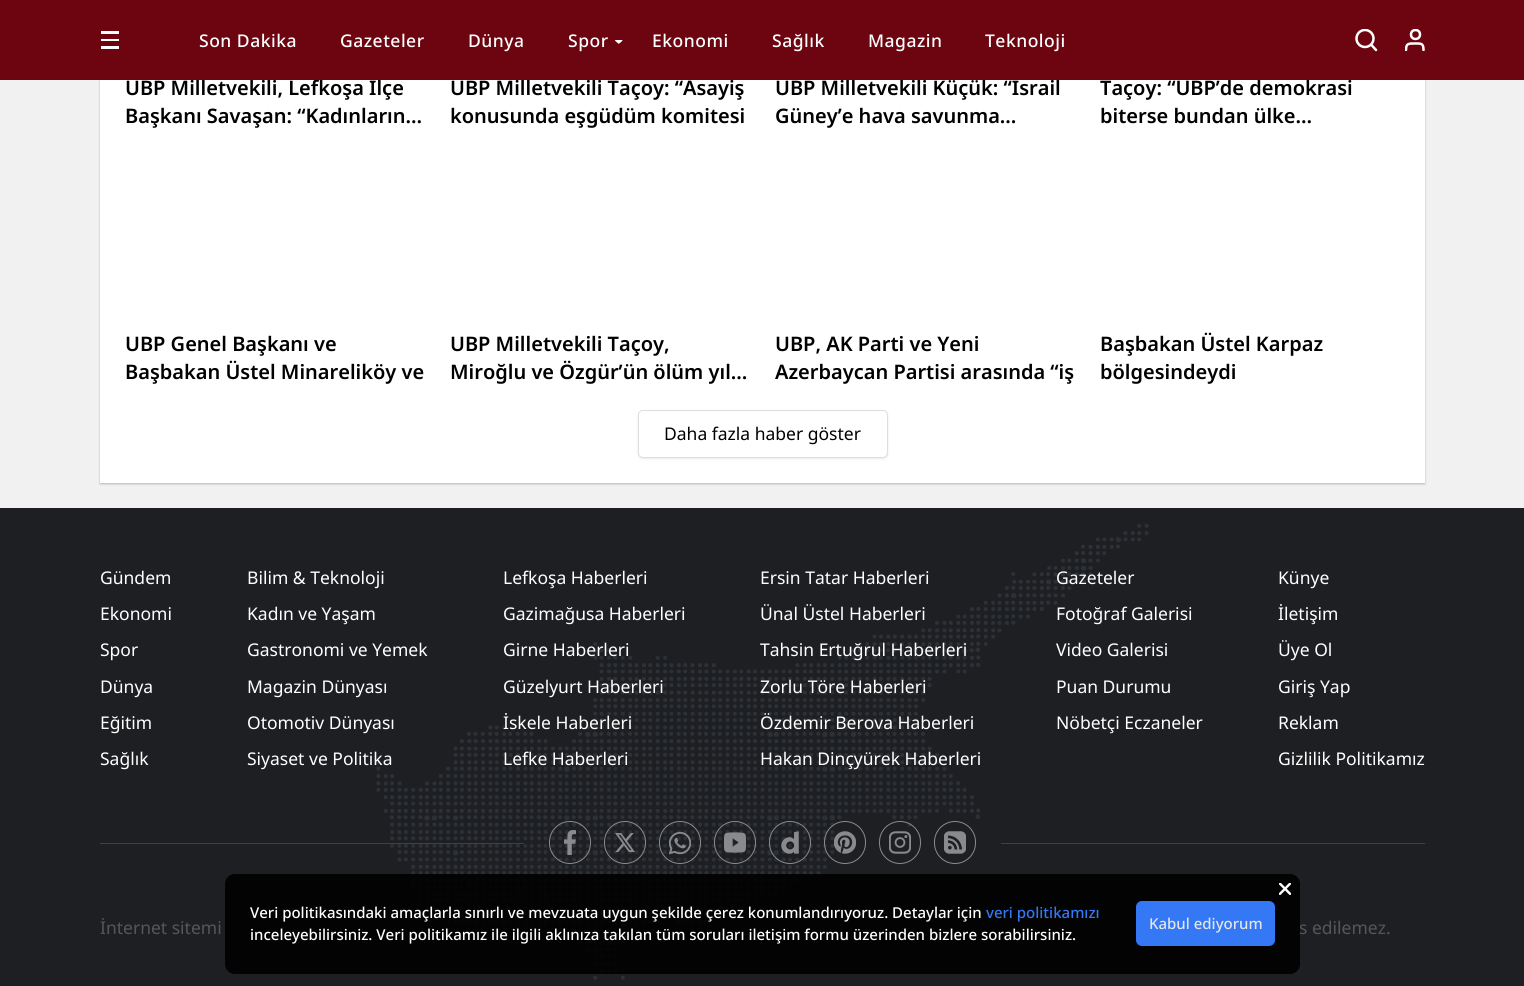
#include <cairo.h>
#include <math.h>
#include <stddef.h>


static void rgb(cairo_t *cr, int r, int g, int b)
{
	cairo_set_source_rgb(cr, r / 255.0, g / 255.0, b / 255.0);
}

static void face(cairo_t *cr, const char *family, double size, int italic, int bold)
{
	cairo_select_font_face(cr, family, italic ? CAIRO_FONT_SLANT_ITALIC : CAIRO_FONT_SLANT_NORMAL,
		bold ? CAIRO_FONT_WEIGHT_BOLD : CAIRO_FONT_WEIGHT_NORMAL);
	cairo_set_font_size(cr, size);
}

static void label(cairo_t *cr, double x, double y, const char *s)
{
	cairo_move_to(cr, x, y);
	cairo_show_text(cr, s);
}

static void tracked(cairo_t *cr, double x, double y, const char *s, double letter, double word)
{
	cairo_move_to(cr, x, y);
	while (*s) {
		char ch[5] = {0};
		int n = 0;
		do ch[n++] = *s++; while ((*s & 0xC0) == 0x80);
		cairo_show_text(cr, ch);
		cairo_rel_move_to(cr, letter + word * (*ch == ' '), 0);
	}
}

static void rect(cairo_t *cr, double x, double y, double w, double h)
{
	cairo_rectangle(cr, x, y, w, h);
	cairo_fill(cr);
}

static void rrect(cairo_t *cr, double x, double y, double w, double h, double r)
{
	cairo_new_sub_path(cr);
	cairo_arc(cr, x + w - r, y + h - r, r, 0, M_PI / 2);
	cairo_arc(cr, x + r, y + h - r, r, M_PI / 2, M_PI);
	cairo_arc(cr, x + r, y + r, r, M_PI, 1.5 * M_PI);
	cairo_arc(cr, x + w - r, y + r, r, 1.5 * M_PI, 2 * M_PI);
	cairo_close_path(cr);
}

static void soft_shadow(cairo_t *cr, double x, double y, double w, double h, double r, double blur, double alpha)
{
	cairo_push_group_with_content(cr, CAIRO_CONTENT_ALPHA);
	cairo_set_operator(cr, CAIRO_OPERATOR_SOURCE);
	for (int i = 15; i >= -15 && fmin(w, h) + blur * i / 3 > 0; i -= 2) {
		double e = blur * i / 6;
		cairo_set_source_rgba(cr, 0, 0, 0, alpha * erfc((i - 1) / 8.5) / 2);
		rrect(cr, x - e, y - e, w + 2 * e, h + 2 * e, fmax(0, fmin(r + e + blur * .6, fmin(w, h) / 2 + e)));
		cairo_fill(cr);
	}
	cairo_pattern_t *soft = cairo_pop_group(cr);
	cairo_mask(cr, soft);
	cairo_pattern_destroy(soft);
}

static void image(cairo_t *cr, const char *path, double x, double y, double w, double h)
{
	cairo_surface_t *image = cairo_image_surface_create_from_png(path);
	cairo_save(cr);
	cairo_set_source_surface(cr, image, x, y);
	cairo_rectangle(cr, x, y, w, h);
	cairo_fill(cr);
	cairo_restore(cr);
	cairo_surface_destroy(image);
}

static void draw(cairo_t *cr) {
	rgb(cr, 241, 241, 241);
	cairo_paint(cr);
	rgb(cr, 17, 21, 25);
	soft_shadow(cr, 100, -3, 1325, 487, 0, 1, 0.27);
	rgb(cr, 255, 255, 255);
	rect(cr, 100, 80, 1325, 403);
	face(cr, "Noto Sans SemiBold", 20, 0, 0);
	rgb(cr, 0, 0, 0);
	label(cr, 125, 95, "UBP Milletvekili, Lefkoşa İlçe");
	label(cr, 450, 95, "UBP Milletvekili Taçoy: “Asayiş");
	label(cr, 775, 95, "UBP Milletvekili Küçük: “İsrail");
	label(cr, 1100, 95, "Taçoy: “UBP’de demokrasi");
	rgb(cr, 108, 5, 16);
	rect(cr, 0, 0, 1524, 80);
	rgb(cr, 255, 255, 255);
	rect(cr, 101, 39, 18, 2);
	rect(cr, 101, 31, 18, 3);
	rect(cr, 101, 46, 18, 3);
	face(cr, "Noto Sans Medium", 17.5, 0, 0);
	tracked(cr, 199, 47, "Son Dakika", 0.5, 0);
	tracked(cr, 340, 47, "Gazeteler", 0.5, 0);
	tracked(cr, 468, 47, "Dünya", 0.5, 0);
	tracked(cr, 568, 47, "Spor", 0.5, 0);
	image(cr, "image0.png", 615, 40, 8, 4);
	tracked(cr, 652, 47, "Ekonomi", 0.5, 0);
	tracked(cr, 772, 47, "Sağlık", 0.5, 0);
	tracked(cr, 868, 47, "Magazin", 0.5, 0);
	tracked(cr, 985, 47, "Teknoloji", 0.5, 0);
	cairo_save(cr);
	cairo_rectangle(cr, 1355, 29, 23, 22);
	cairo_clip(cr);
	cairo_arc(cr, 1365, 38.5, 8.5, 0, 2 * M_PI);
	cairo_set_line_width(cr, 2.5);
	cairo_stroke(cr);
	cairo_restore(cr);
	cairo_new_path(cr);
	cairo_move_to(cr, 1376, 50);
	cairo_line_to(cr, 1371.5, 45);
	cairo_set_line_width(cr, 2.5);
	cairo_set_line_cap(cr, CAIRO_LINE_CAP_ROUND);
	cairo_set_line_join(cr, CAIRO_LINE_JOIN_ROUND);
	cairo_stroke(cr);
	cairo_save(cr);
	cairo_rectangle(cr, 1405, 29, 20, 22);
	cairo_clip(cr);
	cairo_new_path(cr);
	cairo_move_to(cr, 1423.5, 50);
	cairo_curve_to(cr, 1423.5, 43, 1421, 43.5, 1415, 43.5);
	cairo_curve_to(cr, 1409, 43.5, 1406, 43, 1406, 50);
	cairo_stroke(cr);
	cairo_arc(cr, 1415.5, 34.5, 4.5, 0, 2 * M_PI);
	cairo_set_line_cap(cr, CAIRO_LINE_CAP_BUTT);
	cairo_set_line_join(cr, CAIRO_LINE_JOIN_MITER);
	cairo_stroke(cr);
	cairo_restore(cr);
	face(cr, "Noto Sans SemiBold", 20, 0, 0);
	rgb(cr, 0, 0, 0);
	label(cr, 125, 123, "Başkanı Savaşan: “Kadınların…");
	label(cr, 450, 123, "konusunda eşgüdüm komitesi");
	label(cr, 775, 123, "Güney’e hava savunma…");
	label(cr, 1100, 123, "biterse bundan ülke…");
	label(cr, 125, 351, "UBP Genel Başkanı ve");
	label(cr, 125, 379, "Başbakan Üstel Minareliköy ve");
	label(cr, 450, 351, "UBP Milletvekili Taçoy,");
	label(cr, 450, 379, "Miroğlu ve Özgür’ün ölüm yıl…");
	label(cr, 775, 351, "UBP, AK Parti ve Yeni");
	label(cr, 775, 379, "Azerbaycan Partisi arasında “iş");
	label(cr, 1100, 351, "Başbakan Üstel Karpaz");
	label(cr, 1100, 379, "bölgesindeydi");
	rgb(cr, 222, 222, 222);
	soft_shadow(cr, 638, 411, 250, 48, 5, 1, 0.59);
	rgb(cr, 255, 255, 255);
	rrect(cr, 638.5, 410.5, 249, 47, 4.5);
	cairo_fill_preserve(cr);
	rgb(cr, 222, 222, 222);
	cairo_set_line_width(cr, 1);
	cairo_set_line_cap(cr, CAIRO_LINE_CAP_BUTT);
	cairo_set_line_join(cr, CAIRO_LINE_JOIN_MITER);
	cairo_stroke(cr);
	face(cr, "Noto Sans", 17.5, 0, 0);
	rgb(cr, 0, 0, 0);
	label(cr, 664, 440, "Daha fazla haber göster");
	rgb(cr, 29, 31, 34);
	rect(cr, 0, 508, 1524, 478);
	image(cr, "image1.png", 376, 524, 773, 456);
	rgb(cr, 255, 255, 255);
	label(cr, 100, 584, "Gündem");
	label(cr, 100, 620, "Ekonomi");
	label(cr, 100, 656, "Spor");
	label(cr, 100, 693, "Dünya");
	label(cr, 100, 729, "Eğitim");
	label(cr, 100, 765, "Sağlık");
	label(cr, 247, 584, "Bilim & Teknoloji");
	label(cr, 247, 620, "Kadın ve Yaşam");
	label(cr, 247, 656, "Gastronomi ve Yemek");
	label(cr, 247, 693, "Magazin Dünyası");
	label(cr, 247, 729, "Otomotiv Dünyası");
	label(cr, 247, 765, "Siyaset ve Politika");
	label(cr, 503, 584, "Lefkoşa Haberleri");
	label(cr, 503, 620, "Gazimağusa Haberleri");
	label(cr, 503, 656, "Girne Haberleri");
	label(cr, 503, 693, "Güzelyurt Haberleri");
	label(cr, 503, 729, "İskele Haberleri");
	label(cr, 503, 765, "Lefke Haberleri");
	label(cr, 760, 584, "Ersin Tatar Haberleri");
	label(cr, 760, 620, "Ünal Üstel Haberleri");
	label(cr, 760, 656, "Tahsin Ertuğrul Haberleri");
	label(cr, 760, 693, "Zorlu Töre Haberleri");
	label(cr, 760, 729, "Özdemir Berova Haberleri");
	label(cr, 760, 765, "Hakan Dinçyürek Haberleri");
	label(cr, 1056, 584, "Gazeteler");
	label(cr, 1056, 620, "Fotoğraf Galerisi");
	label(cr, 1056, 656, "Video Galerisi");
	label(cr, 1056, 693, "Puan Durumu");
	label(cr, 1056, 729, "Nöbetçi Eczaneler");
	label(cr, 1278, 584, "Künye");
	label(cr, 1278, 620, "İletişim");
	label(cr, 1278, 656, "Üye Ol");
	label(cr, 1278, 693, "Giriş Yap");
	label(cr, 1278, 729, "Reklam");
	label(cr, 1278, 765, "Gizlilik Politikamız");
	cairo_set_source_rgba(cr, 1, 1, 1, 0.15);
	rect(cr, 100, 843, 424, 1);
	rrect(cr, 549.5, 821.5, 41, 42, 20.5);
	rgb(cr, 137, 138, 141);
	cairo_stroke(cr);
	image(cr, "image2.png", 564, 830, 12, 25);
	rrect(cr, 604.5, 821.5, 41, 42, 20.5);
	cairo_stroke(cr);
	image(cr, "image3.png", 615, 833, 20, 20);
	rrect(cr, 659.5, 821.5, 41, 42, 20.5);
	cairo_stroke(cr);
	image(cr, "image4.png", 669, 831, 22, 24);
	rrect(cr, 714.5, 821.5, 41, 42, 20.5);
	cairo_stroke(cr);
	image(cr, "image5.png", 724, 832, 22, 21);
	rrect(cr, 769.5, 821.5, 41, 42, 20.5);
	cairo_stroke(cr);
	image(cr, "image6.png", 781, 831, 18, 23);
	rrect(cr, 824.5, 821.5, 41, 42, 20.5);
	cairo_stroke(cr);
	image(cr, "image7.png", 834, 831, 22, 23);
	rrect(cr, 879.5, 821.5, 41, 42, 20.5);
	cairo_stroke(cr);
	image(cr, "image8.png", 889, 831, 22, 23);
	rrect(cr, 934.5, 821.5, 41, 42, 20.5);
	cairo_stroke(cr);
	image(cr, "image9.png", 944, 831, 22, 23);
	rgb(cr, 63, 65, 67);
	rect(cr, 1001, 843, 424, 1);
	rgb(cr, 85, 86, 90);
	label(cr, 100, 934, "İnternet sitemi");
	label(cr, 1299, 934, "s edilemez.");
	cairo_set_source_rgba(cr, 0, 0, 0, 0.9);
	rrect(cr, 225, 874, 1075, 100, 10);
	cairo_fill(cr);
	image(cr, "image10.png", 1279, 883, 12, 12);
	face(cr, "Noto Sans Medium", 15, 0, 0);
	rgb(cr, 255, 255, 255);
	label(cr, 250, 918, "Veri politikasındaki amaçlarla sınırlı ve mevzuata uygun şekilde çerez konumlandırıyoruz. Detaylar için");
	rgb(cr, 52, 120, 246);
	label(cr, 986, 918, "veri politikamızı");
	rgb(cr, 255, 255, 255);
	label(cr, 250, 940, "inceleyebilirsiniz. Veri politikamız ile ilgili aklınıza takılan tüm soruları iletişim formu üzerinden bizlere sorabilirsiniz.");
	rgb(cr, 52, 120, 246);
	rrect(cr, 1136, 901, 139, 45, 6);
	cairo_fill(cr);
	rgb(cr, 229, 229, 229);
	label(cr, 1149, 929, "Kabul ediyorum");
}

int main(void) {
	cairo_surface_t *surface = cairo_image_surface_create(CAIRO_FORMAT_RGB24, 1524, 986);
	cairo_t *cr = cairo_create(surface);
	cairo_font_options_t *options = cairo_font_options_create();
	cairo_font_options_set_hint_metrics(options, CAIRO_HINT_METRICS_OFF);
	cairo_font_options_set_hint_style(options, CAIRO_HINT_STYLE_NONE);
	cairo_set_font_options(cr, options);
	cairo_set_miter_limit(cr, 4);
	draw(cr);
	cairo_surface_write_to_png(surface, "render.png");
	cairo_font_options_destroy(options);
	cairo_destroy(cr);
	cairo_surface_destroy(surface);
	return 0;
}
